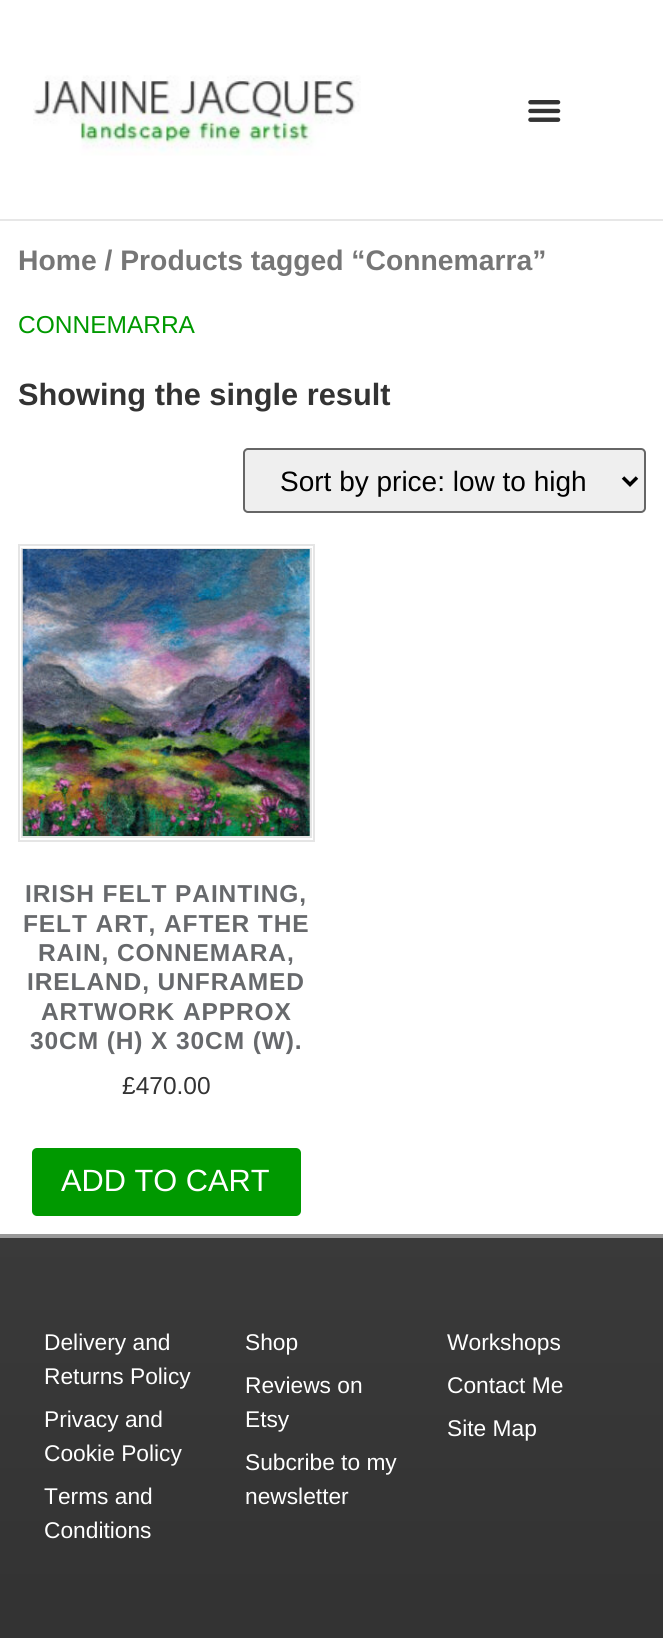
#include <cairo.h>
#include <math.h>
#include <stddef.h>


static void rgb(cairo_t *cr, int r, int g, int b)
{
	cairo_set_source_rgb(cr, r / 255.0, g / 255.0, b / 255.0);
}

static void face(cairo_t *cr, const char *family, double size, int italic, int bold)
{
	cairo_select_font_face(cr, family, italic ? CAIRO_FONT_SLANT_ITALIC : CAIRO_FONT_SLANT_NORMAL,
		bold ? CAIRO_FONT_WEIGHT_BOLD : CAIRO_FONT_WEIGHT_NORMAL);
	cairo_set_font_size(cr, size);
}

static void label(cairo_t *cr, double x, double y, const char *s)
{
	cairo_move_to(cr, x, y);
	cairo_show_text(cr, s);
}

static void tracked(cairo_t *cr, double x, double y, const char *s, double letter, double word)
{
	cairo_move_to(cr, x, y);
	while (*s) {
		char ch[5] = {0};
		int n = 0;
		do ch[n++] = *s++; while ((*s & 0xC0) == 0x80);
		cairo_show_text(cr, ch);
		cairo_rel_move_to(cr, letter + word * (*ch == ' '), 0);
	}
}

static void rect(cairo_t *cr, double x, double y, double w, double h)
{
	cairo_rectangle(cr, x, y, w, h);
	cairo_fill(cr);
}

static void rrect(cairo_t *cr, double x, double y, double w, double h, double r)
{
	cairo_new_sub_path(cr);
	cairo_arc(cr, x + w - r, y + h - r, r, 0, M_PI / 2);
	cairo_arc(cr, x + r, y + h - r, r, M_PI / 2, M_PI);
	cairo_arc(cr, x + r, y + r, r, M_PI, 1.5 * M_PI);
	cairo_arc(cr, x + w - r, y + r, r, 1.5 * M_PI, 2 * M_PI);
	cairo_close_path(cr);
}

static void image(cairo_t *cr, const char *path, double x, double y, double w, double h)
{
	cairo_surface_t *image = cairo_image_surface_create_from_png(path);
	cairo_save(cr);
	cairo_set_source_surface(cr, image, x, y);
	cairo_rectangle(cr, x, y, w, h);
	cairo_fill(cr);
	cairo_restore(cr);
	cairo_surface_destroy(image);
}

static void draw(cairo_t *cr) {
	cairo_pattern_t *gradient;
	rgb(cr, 255, 255, 255);
	cairo_paint(cr);
	rgb(cr, 231, 231, 231);
	rect(cr, 0, 219, 663, 2);
	image(cr, "image0.png", 33, 75, 328, 81);
	image(cr, "image1.png", 528, 100, 33, 22);
	face(cr, "Liberation Sans", 28.3, 0, 1);
	rgb(cr, 118, 118, 118);
	label(cr, 18, 270, "Home / Products tagged “Connemarra”");
	face(cr, "Liberation Sans", 24.5, 0, 0);
	rgb(cr, 0, 153, 0);
	label(cr, 18, 333, "CONNEMARRA");
	face(cr, "Liberation Sans", 30.75, 0, 1);
	rgb(cr, 51, 51, 51);
	label(cr, 18, 405, "Showing the single result");
	rgb(cr, 239, 239, 239);
	rrect(cr, 244, 449, 401, 63, 4);
	cairo_fill_preserve(cr);
	rgb(cr, 102, 102, 102);
	cairo_stroke(cr);
	cairo_new_path(cr);
	cairo_move_to(cr, 623, 477.5);
	cairo_line_to(cr, 630, 484.5);
	cairo_line_to(cr, 637, 477.5);
	rgb(cr, 0, 0, 0);
	cairo_set_line_width(cr, 3.5);
	cairo_stroke(cr);
	face(cr, "Liberation Sans", 28, 0, 0);
	label(cr, 280, 491, "Sort by price: low to high");
	cairo_rectangle(cr, 19, 545, 295, 296);
	rgb(cr, 229, 229, 229);
	cairo_set_line_width(cr, 2);
	cairo_stroke(cr);
	cairo_rectangle(cr, 22, 549, 289, 288);
	cairo_stroke(cr);
	image(cr, "image2.png", 22, 549, 288, 287);
	face(cr, "Liberation Sans", 24.5, 0, 1);
	rgb(cr, 103, 105, 108);
	tracked(cr, 25, 902, "IRISH FELT PAINTING,", 0.9, 0);
	tracked(cr, 23, 932, "FELT ART, AFTER THE", 0.9, 0);
	tracked(cr, 38, 961, "RAIN, CONNEMARA,", 0.9, 0);
	tracked(cr, 27, 990, "IRELAND, UNFRAMED", 0.9, 0);
	tracked(cr, 41, 1020, "ARTWORK APPROX", 0.9, 0);
	tracked(cr, 30, 1049, "30CM (H) X 30CM (W).", 0.9, 0);
	face(cr, "Liberation Sans", 24.5, 0, 0);
	rgb(cr, 51, 51, 51);
	label(cr, 122, 1094, "£470.00");
	rgb(cr, 0, 153, 0);
	rrect(cr, 32, 1148, 269, 68, 5);
	cairo_fill(cr);
	face(cr, "Liberation Sans", 30.75, 0, 0);
	rgb(cr, 255, 255, 255);
	label(cr, 61, 1191, "ADD TO CART");
	gradient = cairo_pattern_create_linear(332, 1600, 332, 1237);
	cairo_pattern_add_color_stop_rgba(gradient, 0, 0.2, 0.2, 0.2, 1);
	cairo_pattern_add_color_stop_rgba(gradient, 1, 0.227, 0.227, 0.227, 1);
	cairo_set_source(cr, gradient);
	cairo_pattern_destroy(gradient);
	rect(cr, 0, 1238, 663, 362);
	rgb(cr, 153, 153, 153);
	rect(cr, 0, 1234, 663, 4);
	face(cr, "Liberation Sans", 22.75, 0, 0);
	rgb(cr, 255, 255, 255);
	label(cr, 44, 1350, "Delivery and");
	label(cr, 44, 1384, "Returns Policy");
	label(cr, 44, 1427, "Privacy and");
	label(cr, 44, 1461, "Cookie Policy");
	label(cr, 44, 1504, "Terms and");
	label(cr, 44, 1538, "Conditions");
	label(cr, 245, 1350, "Shop");
	label(cr, 245, 1393, "Reviews on");
	label(cr, 245, 1427, "Etsy");
	label(cr, 245, 1470, "Subcribe to my");
	label(cr, 245, 1504, "newsletter");
	label(cr, 447, 1350, "Workshops");
	label(cr, 447, 1393, "Contact Me");
	label(cr, 447, 1436, "Site Map");
	rgb(cr, 51, 51, 51);
	rect(cr, 0, 1600, 663, 38);
}

int main(void) {
	cairo_surface_t *surface = cairo_image_surface_create(CAIRO_FORMAT_RGB24, 663, 1638);
	cairo_t *cr = cairo_create(surface);
	cairo_font_options_t *options = cairo_font_options_create();
	cairo_font_options_set_hint_metrics(options, CAIRO_HINT_METRICS_OFF);
	cairo_font_options_set_hint_style(options, CAIRO_HINT_STYLE_NONE);
	cairo_set_font_options(cr, options);
	cairo_set_miter_limit(cr, 4);
	draw(cr);
	cairo_surface_write_to_png(surface, "render.png");
	cairo_font_options_destroy(options);
	cairo_destroy(cr);
	cairo_surface_destroy(surface);
	return 0;
}
